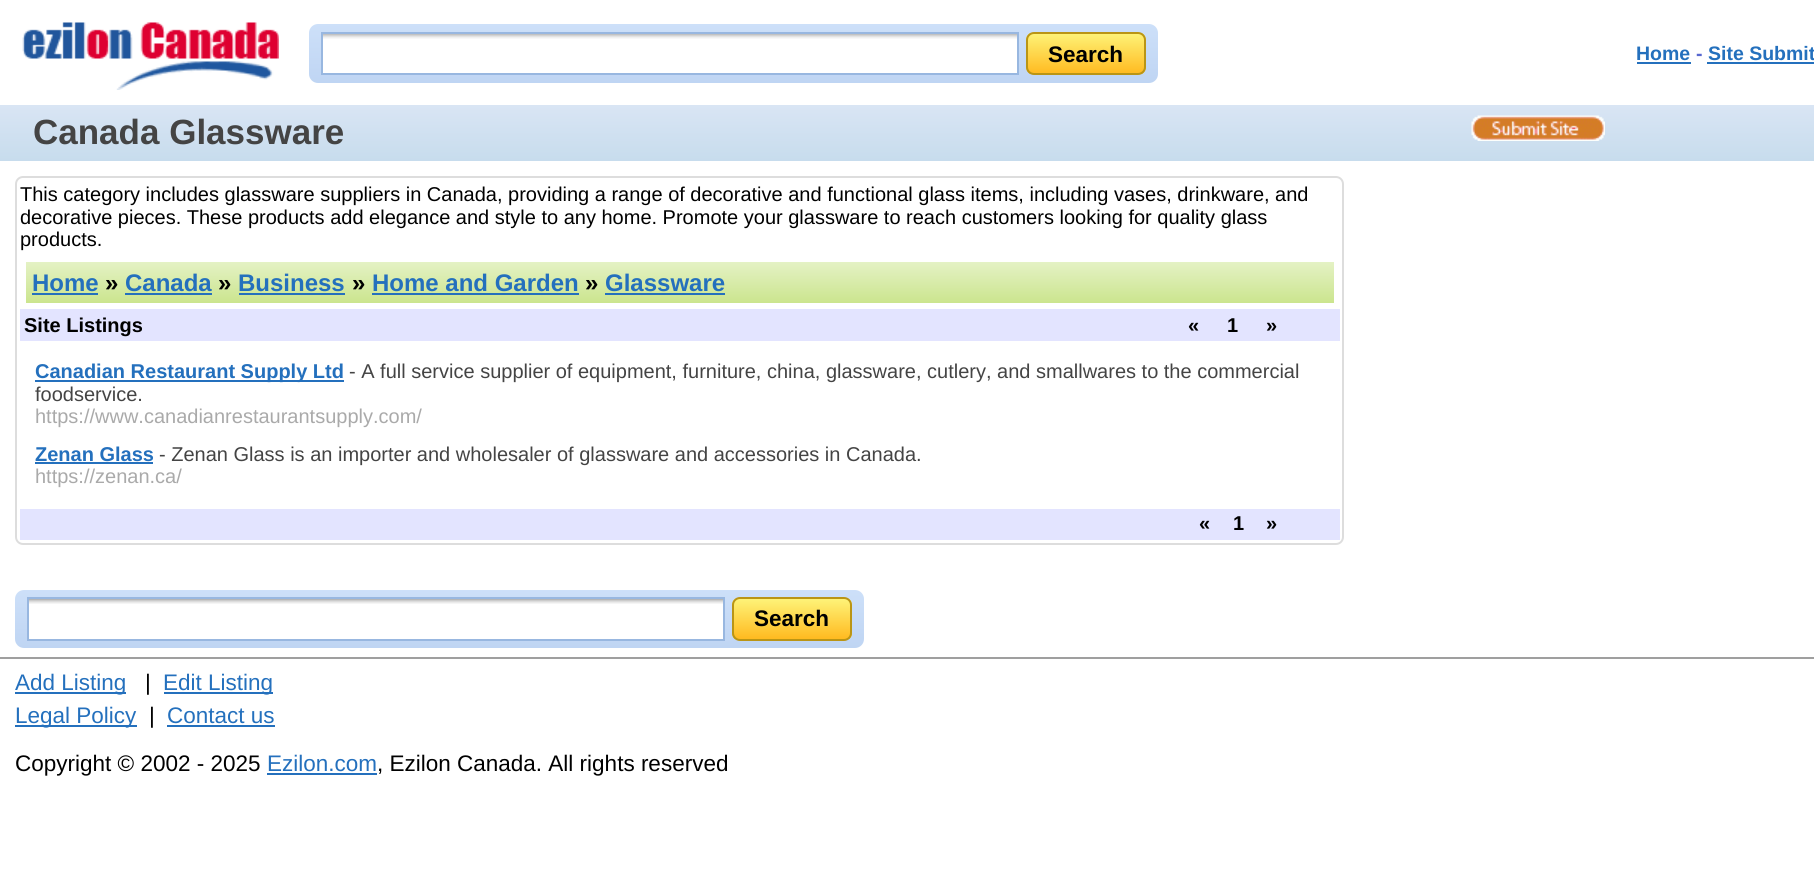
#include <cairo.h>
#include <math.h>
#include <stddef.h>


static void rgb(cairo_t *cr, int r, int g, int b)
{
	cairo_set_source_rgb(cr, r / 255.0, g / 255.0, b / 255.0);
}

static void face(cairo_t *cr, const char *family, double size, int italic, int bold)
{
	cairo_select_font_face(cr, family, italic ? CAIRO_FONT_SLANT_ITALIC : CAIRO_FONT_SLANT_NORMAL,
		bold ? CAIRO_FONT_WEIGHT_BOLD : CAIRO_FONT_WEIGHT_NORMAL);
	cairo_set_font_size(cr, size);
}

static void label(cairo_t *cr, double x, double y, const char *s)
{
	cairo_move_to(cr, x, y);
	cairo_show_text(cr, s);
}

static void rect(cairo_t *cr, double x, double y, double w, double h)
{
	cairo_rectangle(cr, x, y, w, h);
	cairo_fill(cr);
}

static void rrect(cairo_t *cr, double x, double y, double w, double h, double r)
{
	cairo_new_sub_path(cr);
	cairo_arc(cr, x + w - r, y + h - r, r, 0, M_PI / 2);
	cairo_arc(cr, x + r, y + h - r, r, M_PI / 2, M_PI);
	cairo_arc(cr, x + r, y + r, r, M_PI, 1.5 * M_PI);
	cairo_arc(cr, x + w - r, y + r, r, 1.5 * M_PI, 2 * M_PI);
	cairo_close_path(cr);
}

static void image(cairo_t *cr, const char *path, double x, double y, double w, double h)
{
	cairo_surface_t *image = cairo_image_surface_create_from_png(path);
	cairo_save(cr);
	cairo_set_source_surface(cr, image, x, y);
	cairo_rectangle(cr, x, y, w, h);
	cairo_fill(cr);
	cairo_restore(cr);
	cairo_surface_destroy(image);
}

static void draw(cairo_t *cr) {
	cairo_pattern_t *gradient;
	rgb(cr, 255, 255, 255);
	cairo_paint(cr);
	image(cr, "image0.png", 22, 22, 257, 68);
	gradient = cairo_pattern_create_linear(734, 24, 734, 83);
	cairo_pattern_add_color_stop_rgba(gradient, 0, 0.804, 0.878, 0.976, 1);
	cairo_pattern_add_color_stop_rgba(gradient, 1, 0.749, 0.835, 0.953, 1);
	cairo_set_source(cr, gradient);
	cairo_pattern_destroy(gradient);
	rrect(cr, 309, 24, 849, 59, 9);
	cairo_fill(cr);
	rgb(cr, 255, 255, 255);
	rect(cr, 323, 39, 694, 34);
	image(cr, "image1.png", 323, 34, 694, 5);
	cairo_rectangle(cr, 322, 33, 696, 41);
	rgb(cr, 152, 183, 224);
	cairo_stroke(cr);
	cairo_save(cr);
	rrect(cr, 1026, 32, 120, 43, 8);
	cairo_clip(cr);
	gradient = cairo_pattern_create_linear(1086, 33, 1086, 74);
	cairo_pattern_add_color_stop_rgba(gradient, 0, 0.996, 0.953, 0.471, 1);
	cairo_pattern_add_color_stop_rgba(gradient, 1, 1, 0.729, 0.125, 1);
	cairo_set_source(cr, gradient);
	cairo_pattern_destroy(gradient);
	rect(cr, 1026, 33, 120, 41);
	cairo_restore(cr);
	rrect(cr, 1027, 33, 118, 41, 7);
	rgb(cr, 186, 149, 21);
	cairo_stroke(cr);
	face(cr, "Liberation Sans", 22.5, 0, 1);
	rgb(cr, 0, 0, 0);
	label(cr, 1048, 62, "Search");
	face(cr, "Liberation Sans", 19.5, 0, 1);
	rgb(cr, 36, 112, 189);
	label(cr, 1636, 60, "Home");
	rect(cr, 1637, 62, 54, 2);
	rgb(cr, 88, 104, 208);
	label(cr, 1696, 60, "-");
	rgb(cr, 36, 112, 189);
	label(cr, 1708, 60, "Site Submit");
	rect(cr, 1707, 62, 107, 2);
	gradient = cairo_pattern_create_linear(908, 105, 908, 161);
	cairo_pattern_add_color_stop_rgba(gradient, 0, 0.851, 0.898, 0.957, 1);
	cairo_pattern_add_color_stop_rgba(gradient, 1, 0.78, 0.863, 0.929, 1);
	cairo_set_source(cr, gradient);
	cairo_pattern_destroy(gradient);
	rect(cr, 0, 105, 1814, 56);
	face(cr, "Liberation Sans", 35, 0, 1);
	rgb(cr, 68, 68, 68);
	label(cr, 33, 144, "Canada Glassware");
	image(cr, "image2.png", 1471, 115, 134, 26);
	rrect(cr, 16, 177, 1327, 367, 7);
	rgb(cr, 221, 221, 221);
	cairo_stroke(cr);
	face(cr, "Liberation Sans", 20, 0, 0);
	rgb(cr, 0, 0, 0);
	label(cr, 20, 201, "This category includes glassware suppliers in Canada, providing a range of decorative and functional glass items, including vases, drinkware, and");
	label(cr, 20, 224, "decorative pieces. These products add elegance and style to any home. Promote your glassware to reach customers looking for quality glass");
	label(cr, 20, 246, "products.");
	gradient = cairo_pattern_create_linear(680, 261, 680, 303);
	cairo_pattern_add_color_stop_rgba(gradient, 0, 0.898, 0.949, 0.776, 1);
	cairo_pattern_add_color_stop_rgba(gradient, 1, 0.796, 0.898, 0.557, 1);
	cairo_set_source(cr, gradient);
	cairo_pattern_destroy(gradient);
	rect(cr, 26, 262, 1308, 41);
	face(cr, "Liberation Sans", 24, 0, 1);
	rgb(cr, 36, 112, 189);
	label(cr, 32, 291, "Home");
	rect(cr, 32, 293, 66, 2);
	rgb(cr, 0, 0, 0);
	label(cr, 105, 291, "»");
	rgb(cr, 36, 112, 189);
	label(cr, 125, 291, "Canada");
	rect(cr, 125, 293, 87, 2);
	rgb(cr, 0, 0, 0);
	label(cr, 218, 291, "»");
	rgb(cr, 36, 112, 189);
	label(cr, 238, 291, "Business");
	rect(cr, 239, 293, 106, 2);
	rgb(cr, 0, 0, 0);
	label(cr, 352, 291, "»");
	rgb(cr, 36, 112, 189);
	label(cr, 372, 291, "Home and Garden");
	rect(cr, 372, 293, 207, 2);
	rgb(cr, 0, 0, 0);
	label(cr, 585, 291, "»");
	rgb(cr, 36, 112, 189);
	label(cr, 605, 291, "Glassware");
	rect(cr, 605, 293, 120, 2);
	rgb(cr, 227, 228, 255);
	rect(cr, 20, 309, 1320, 32);
	face(cr, "Liberation Sans", 20, 0, 1);
	rgb(cr, 0, 0, 0);
	label(cr, 24, 332, "Site Listings");
	label(cr, 1188, 332, "«");
	label(cr, 1227, 332, "1");
	label(cr, 1266, 332, "»");
	rgb(cr, 36, 112, 189);
	rect(cr, 35, 380, 309, 2);
	label(cr, 35, 378, "Canadian Restaurant Supply Ltd");
	face(cr, "Liberation Sans", 20, 0, 0);
	rgb(cr, 68, 68, 68);
	label(cr, 349, 378, "- A full service supplier of equipment, furniture, china, glassware, cutlery, and smallwares to the commercial");
	label(cr, 35, 401, "foodservice.");
	rgb(cr, 170, 170, 170);
	label(cr, 35, 423, "https://www.canadianrestaurantsupply.com/");
	face(cr, "Liberation Sans", 20, 0, 1);
	rgb(cr, 36, 112, 189);
	label(cr, 35, 461, "Zenan Glass");
	rect(cr, 35, 462, 118, 2);
	face(cr, "Liberation Sans", 20, 0, 0);
	rgb(cr, 68, 68, 68);
	label(cr, 159, 461, "- Zenan Glass is an importer and wholesaler of glassware and accessories in Canada.");
	rgb(cr, 170, 170, 170);
	label(cr, 35, 483, "https://zenan.ca/");
	rgb(cr, 227, 228, 255);
	rect(cr, 20, 509, 1320, 31);
	face(cr, "Liberation Sans", 20, 0, 1);
	rgb(cr, 0, 0, 0);
	label(cr, 1199, 530, "«");
	label(cr, 1233, 530, "1");
	label(cr, 1266, 530, "»");
	gradient = cairo_pattern_create_linear(440, 589, 440, 648);
	cairo_pattern_add_color_stop_rgba(gradient, 0, 0.804, 0.878, 0.976, 1);
	cairo_pattern_add_color_stop_rgba(gradient, 1, 0.749, 0.835, 0.953, 1);
	cairo_set_source(cr, gradient);
	cairo_pattern_destroy(gradient);
	rrect(cr, 15, 590, 849, 58, 9);
	cairo_fill(cr);
	rgb(cr, 255, 255, 255);
	rect(cr, 29, 604, 694, 35);
	image(cr, "image3.png", 29, 599, 694, 5);
	cairo_rectangle(cr, 28, 598, 696, 42);
	rgb(cr, 152, 183, 224);
	cairo_stroke(cr);
	cairo_save(cr);
	rrect(cr, 732, 597, 120, 44, 8);
	cairo_clip(cr);
	gradient = cairo_pattern_create_linear(792, 599, 792, 639);
	cairo_pattern_add_color_stop_rgba(gradient, 0, 0.996, 0.953, 0.471, 1);
	cairo_pattern_add_color_stop_rgba(gradient, 1, 1, 0.729, 0.125, 1);
	cairo_set_source(cr, gradient);
	cairo_pattern_destroy(gradient);
	rect(cr, 732, 599, 120, 40);
	cairo_restore(cr);
	rrect(cr, 733, 598, 118, 42, 7);
	rgb(cr, 186, 149, 21);
	cairo_stroke(cr);
	face(cr, "Liberation Sans", 22.5, 0, 1);
	rgb(cr, 0, 0, 0);
	label(cr, 754, 626, "Search");
	rgb(cr, 159, 159, 159);
	rect(cr, 0, 657, 1814, 2);
	rgb(cr, 36, 112, 189);
	rect(cr, 15, 692, 111, 2);
	face(cr, "Liberation Sans", 22.5, 0, 0);
	label(cr, 15, 690, "Add Listing");
	rgb(cr, 0, 0, 0);
	label(cr, 145, 690, "|");
	rgb(cr, 36, 112, 189);
	rect(cr, 164, 692, 109, 2);
	label(cr, 163, 690, "Edit Listing");
	rect(cr, 15, 725, 122, 2);
	label(cr, 15, 723, "Legal Policy");
	rgb(cr, 0, 0, 0);
	label(cr, 149, 723, "|");
	rgb(cr, 36, 112, 189);
	label(cr, 167, 723, "Contact us");
	rect(cr, 167, 725, 108, 2);
	rgb(cr, 0, 0, 0);
	label(cr, 15, 771, "Copyright © 2002 - 2025");
	rgb(cr, 36, 112, 189);
	label(cr, 267, 771, "Ezilon.com");
	rect(cr, 267, 773, 110, 2);
	rgb(cr, 0, 0, 0);
	label(cr, 377, 771, ", Ezilon Canada. All rights reserved");
}

int main(void) {
	cairo_surface_t *surface = cairo_image_surface_create(CAIRO_FORMAT_RGB24, 1814, 885);
	cairo_t *cr = cairo_create(surface);
	cairo_font_options_t *options = cairo_font_options_create();
	cairo_font_options_set_hint_metrics(options, CAIRO_HINT_METRICS_OFF);
	cairo_font_options_set_hint_style(options, CAIRO_HINT_STYLE_NONE);
	cairo_set_font_options(cr, options);
	cairo_set_miter_limit(cr, 4);
	draw(cr);
	cairo_surface_write_to_png(surface, "render.png");
	cairo_font_options_destroy(options);
	cairo_destroy(cr);
	cairo_surface_destroy(surface);
	return 0;
}
